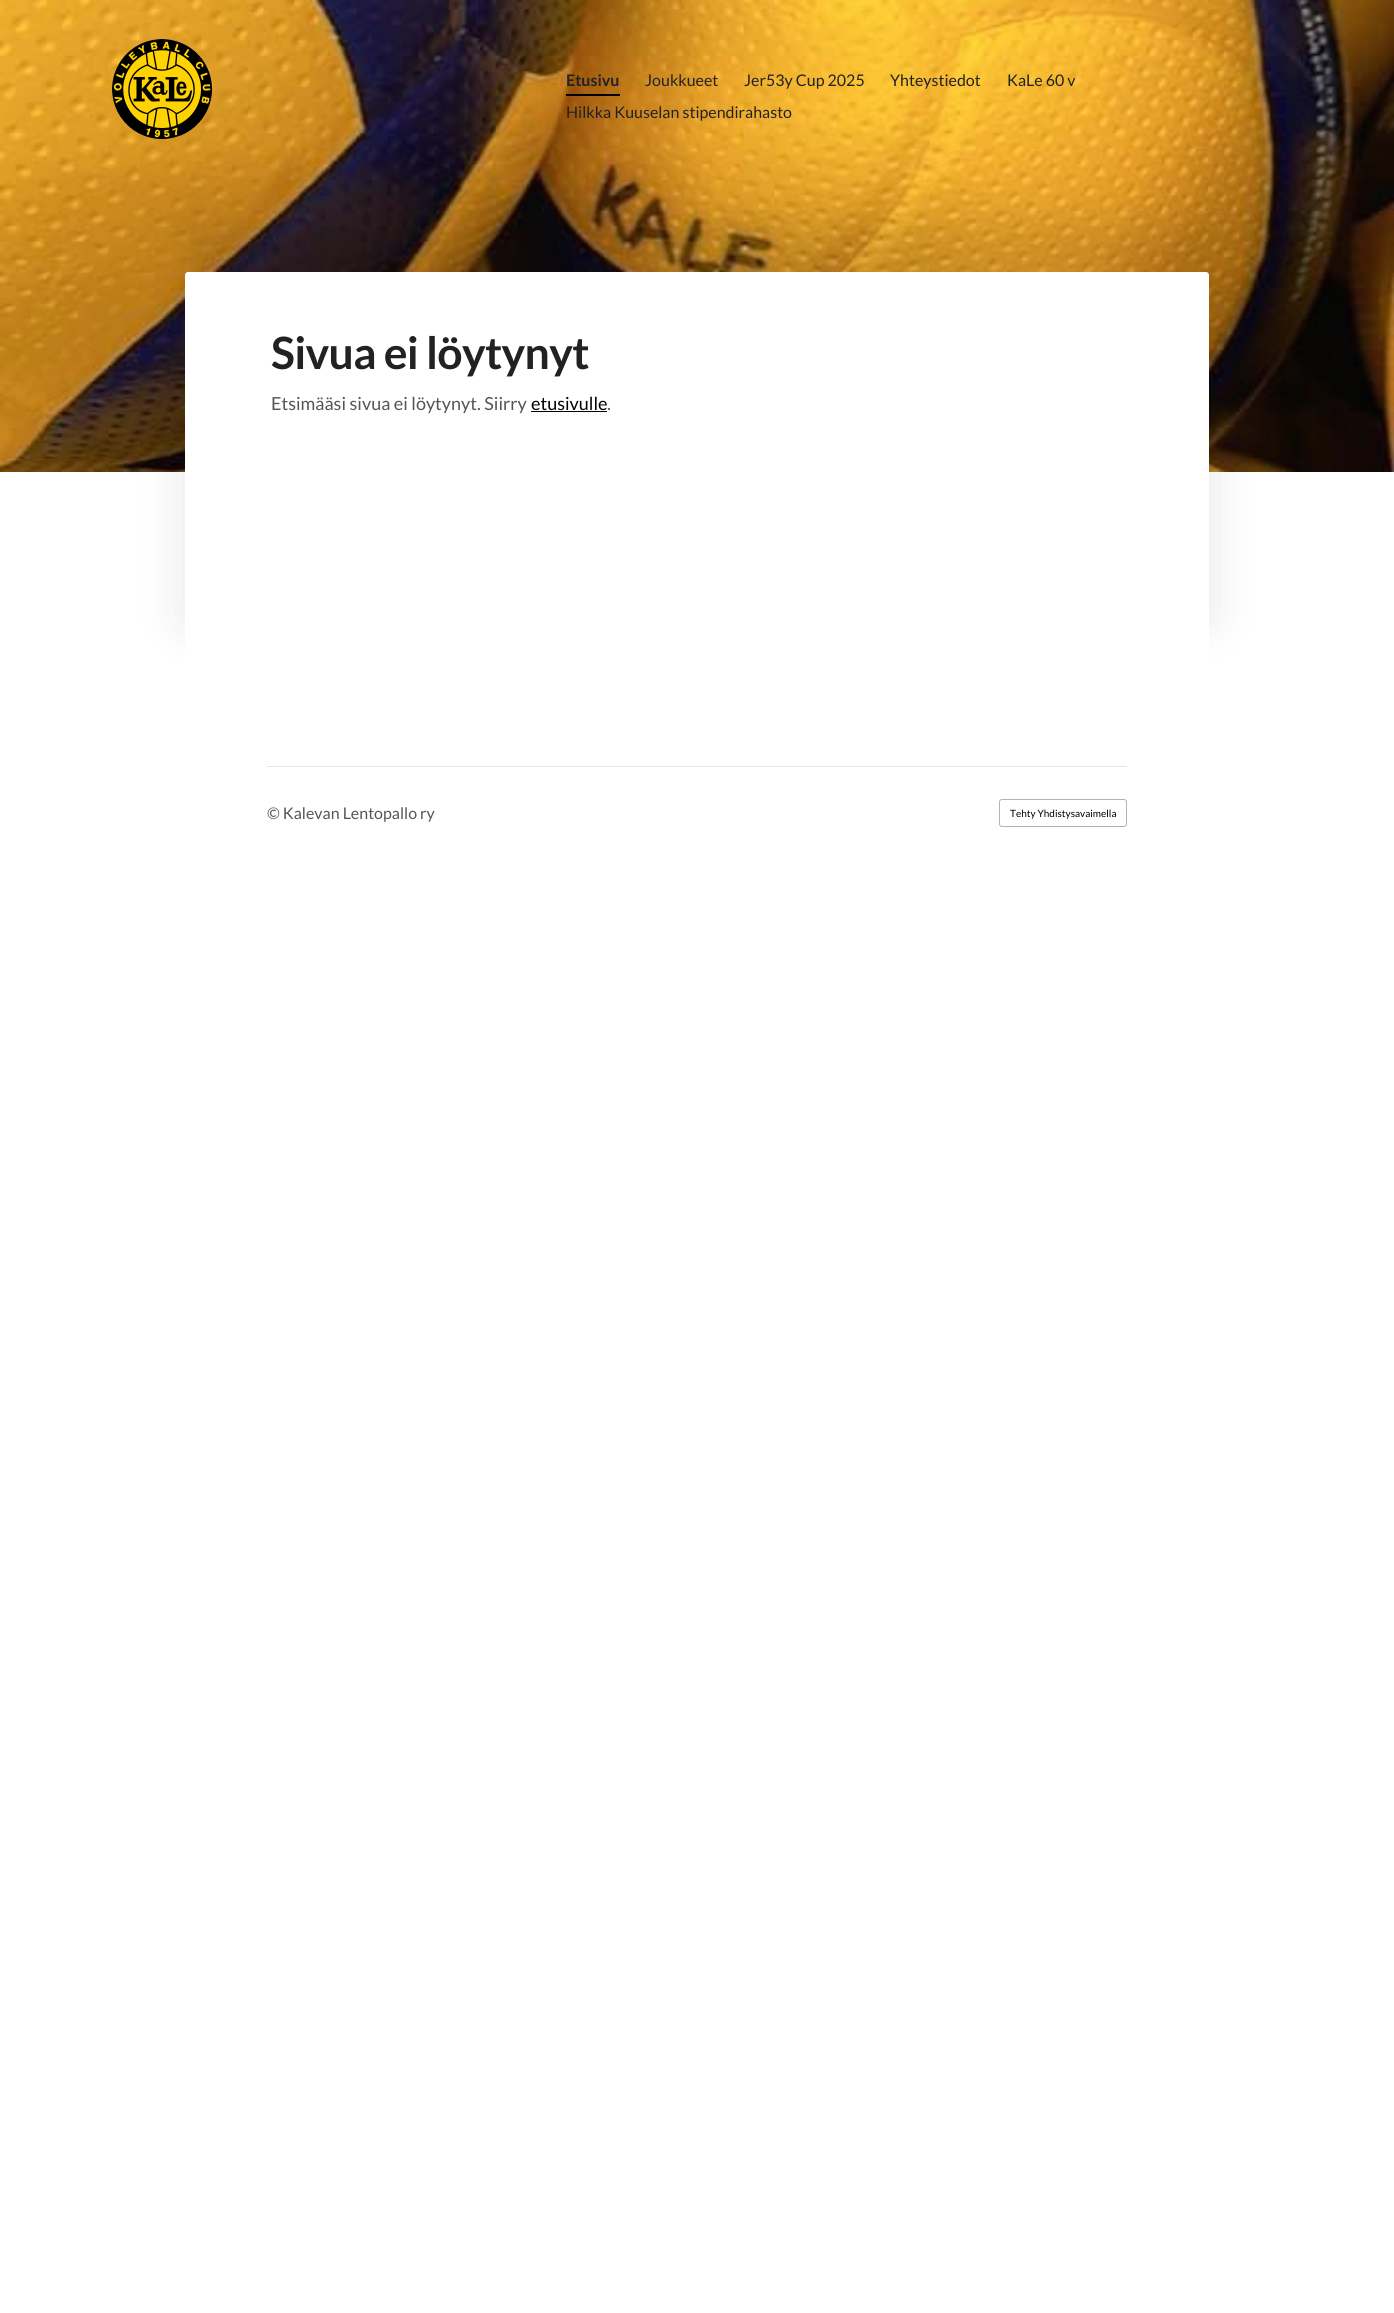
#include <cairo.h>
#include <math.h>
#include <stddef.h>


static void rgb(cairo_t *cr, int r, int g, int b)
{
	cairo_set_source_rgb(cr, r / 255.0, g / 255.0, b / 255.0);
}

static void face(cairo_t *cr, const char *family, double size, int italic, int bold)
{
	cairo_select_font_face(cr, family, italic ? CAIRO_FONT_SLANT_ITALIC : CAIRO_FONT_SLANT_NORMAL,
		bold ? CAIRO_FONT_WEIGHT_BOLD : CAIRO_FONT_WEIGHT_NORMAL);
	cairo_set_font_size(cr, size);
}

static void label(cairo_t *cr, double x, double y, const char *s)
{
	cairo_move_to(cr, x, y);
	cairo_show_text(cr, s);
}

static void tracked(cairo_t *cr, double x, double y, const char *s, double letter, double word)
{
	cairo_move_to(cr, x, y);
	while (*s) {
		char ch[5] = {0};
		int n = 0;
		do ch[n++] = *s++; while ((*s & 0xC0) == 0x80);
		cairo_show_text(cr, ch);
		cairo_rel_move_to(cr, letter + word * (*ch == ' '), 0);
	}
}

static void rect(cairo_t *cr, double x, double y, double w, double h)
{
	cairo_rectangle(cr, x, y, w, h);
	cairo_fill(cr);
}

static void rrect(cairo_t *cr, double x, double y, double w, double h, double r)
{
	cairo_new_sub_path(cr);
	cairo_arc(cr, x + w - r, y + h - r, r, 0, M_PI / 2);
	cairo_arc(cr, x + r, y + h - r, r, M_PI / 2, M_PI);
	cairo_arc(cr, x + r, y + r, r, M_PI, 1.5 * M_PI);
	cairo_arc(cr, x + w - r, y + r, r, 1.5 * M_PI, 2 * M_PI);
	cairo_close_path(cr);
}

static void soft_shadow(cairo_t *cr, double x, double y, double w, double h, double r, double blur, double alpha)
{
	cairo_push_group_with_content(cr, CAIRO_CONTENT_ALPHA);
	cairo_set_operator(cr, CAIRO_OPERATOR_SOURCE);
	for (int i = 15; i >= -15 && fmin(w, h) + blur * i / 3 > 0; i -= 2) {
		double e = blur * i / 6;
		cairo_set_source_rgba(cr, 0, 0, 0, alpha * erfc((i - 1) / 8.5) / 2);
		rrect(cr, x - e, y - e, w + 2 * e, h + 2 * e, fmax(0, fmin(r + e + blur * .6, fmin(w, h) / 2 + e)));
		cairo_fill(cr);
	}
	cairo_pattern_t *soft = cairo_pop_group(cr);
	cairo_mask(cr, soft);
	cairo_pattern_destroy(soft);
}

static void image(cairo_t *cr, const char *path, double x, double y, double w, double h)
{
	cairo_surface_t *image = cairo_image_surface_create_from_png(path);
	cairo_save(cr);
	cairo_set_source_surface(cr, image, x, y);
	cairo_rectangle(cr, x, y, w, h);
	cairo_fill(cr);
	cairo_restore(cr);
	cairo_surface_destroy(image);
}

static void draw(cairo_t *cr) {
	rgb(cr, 255, 255, 255);
	cairo_paint(cr);
	image(cr, "image0.png", 0, 0, 1394, 472);
	image(cr, "image1.png", 112, 39, 100, 100);
	face(cr, "Lato", 16, 0, 1);
	rgb(cr, 34, 34, 34);
	label(cr, 566, 86, "Etusivu");
	rgb(cr, 0, 0, 0);
	rect(cr, 566, 94, 54, 2);
	face(cr, "Lato", 16, 0, 0);
	rgb(cr, 34, 34, 34);
	label(cr, 645, 86, "Joukkueet");
	label(cr, 744, 86, "Jer53y Cup 2025");
	label(cr, 890, 86, "Yhteystiedot");
	label(cr, 1007, 86, "KaLe 60 v");
	label(cr, 566, 118, "Hilkka Kuuselan stipendirahasto");
	rgb(cr, 0, 0, 0);
	soft_shadow(cr, 185, 222, 1024, 400, 3, 25, 0.1);
	rgb(cr, 255, 255, 255);
	rrect(cr, 185, 272, 1024, 400, 3);
	cairo_fill(cr);
	face(cr, "Lato", 44.5, 0, 1);
	rgb(cr, 34, 34, 34);
	tracked(cr, 271, 369, "Sivua ei löytynyt", -0.7, 0);
	face(cr, "Lato", 18, 0, 0);
	rgb(cr, 85, 85, 85);
	label(cr, 271, 410, "Etsimääsi sivua ei löytynyt. Siirry");
	rgb(cr, 0, 0, 0);
	label(cr, 531, 410, "etusivulle");
	rect(cr, 531, 411, 76, 1);
	rgb(cr, 85, 85, 85);
	label(cr, 607, 410, ".");
	rgb(cr, 230, 230, 230);
	rect(cr, 267, 766, 860, 1);
	face(cr, "Lato", 16, 0, 0);
	rgb(cr, 85, 85, 85);
	label(cr, 267, 819, "© Kalevan Lentopallo ry");
	rrect(cr, 999.5, 799.5, 127, 27, 2.5);
	rgb(cr, 179, 179, 179);
	cairo_set_line_width(cr, 1);
	cairo_stroke(cr);
	face(cr, "Lato", 10, 0, 0);
	rgb(cr, 0, 0, 0);
	label(cr, 1010, 817, "Tehty Yhdistysavaimella");
}

int main(void) {
	cairo_surface_t *surface = cairo_image_surface_create(CAIRO_FORMAT_RGB24, 1394, 2313);
	cairo_t *cr = cairo_create(surface);
	cairo_font_options_t *options = cairo_font_options_create();
	cairo_font_options_set_hint_metrics(options, CAIRO_HINT_METRICS_OFF);
	cairo_font_options_set_hint_style(options, CAIRO_HINT_STYLE_NONE);
	cairo_set_font_options(cr, options);
	cairo_set_miter_limit(cr, 4);
	draw(cr);
	cairo_surface_write_to_png(surface, "render.png");
	cairo_font_options_destroy(options);
	cairo_destroy(cr);
	cairo_surface_destroy(surface);
	return 0;
}
